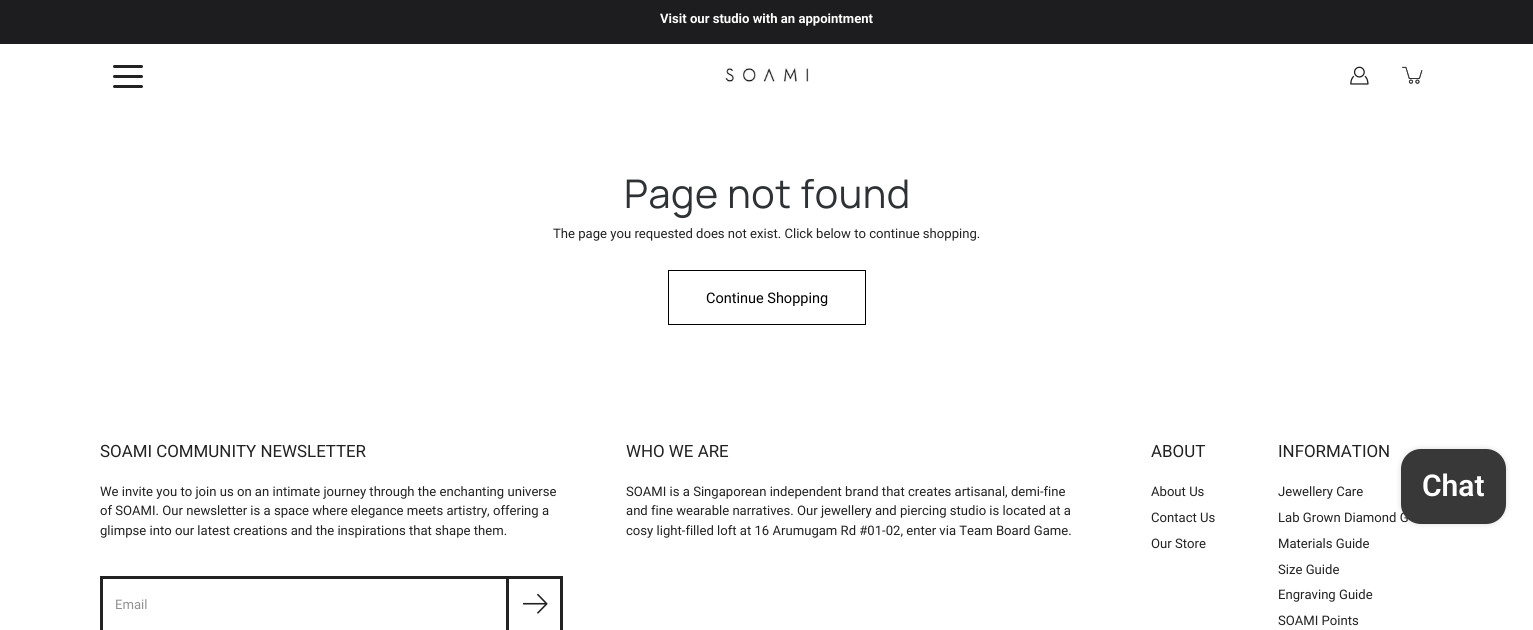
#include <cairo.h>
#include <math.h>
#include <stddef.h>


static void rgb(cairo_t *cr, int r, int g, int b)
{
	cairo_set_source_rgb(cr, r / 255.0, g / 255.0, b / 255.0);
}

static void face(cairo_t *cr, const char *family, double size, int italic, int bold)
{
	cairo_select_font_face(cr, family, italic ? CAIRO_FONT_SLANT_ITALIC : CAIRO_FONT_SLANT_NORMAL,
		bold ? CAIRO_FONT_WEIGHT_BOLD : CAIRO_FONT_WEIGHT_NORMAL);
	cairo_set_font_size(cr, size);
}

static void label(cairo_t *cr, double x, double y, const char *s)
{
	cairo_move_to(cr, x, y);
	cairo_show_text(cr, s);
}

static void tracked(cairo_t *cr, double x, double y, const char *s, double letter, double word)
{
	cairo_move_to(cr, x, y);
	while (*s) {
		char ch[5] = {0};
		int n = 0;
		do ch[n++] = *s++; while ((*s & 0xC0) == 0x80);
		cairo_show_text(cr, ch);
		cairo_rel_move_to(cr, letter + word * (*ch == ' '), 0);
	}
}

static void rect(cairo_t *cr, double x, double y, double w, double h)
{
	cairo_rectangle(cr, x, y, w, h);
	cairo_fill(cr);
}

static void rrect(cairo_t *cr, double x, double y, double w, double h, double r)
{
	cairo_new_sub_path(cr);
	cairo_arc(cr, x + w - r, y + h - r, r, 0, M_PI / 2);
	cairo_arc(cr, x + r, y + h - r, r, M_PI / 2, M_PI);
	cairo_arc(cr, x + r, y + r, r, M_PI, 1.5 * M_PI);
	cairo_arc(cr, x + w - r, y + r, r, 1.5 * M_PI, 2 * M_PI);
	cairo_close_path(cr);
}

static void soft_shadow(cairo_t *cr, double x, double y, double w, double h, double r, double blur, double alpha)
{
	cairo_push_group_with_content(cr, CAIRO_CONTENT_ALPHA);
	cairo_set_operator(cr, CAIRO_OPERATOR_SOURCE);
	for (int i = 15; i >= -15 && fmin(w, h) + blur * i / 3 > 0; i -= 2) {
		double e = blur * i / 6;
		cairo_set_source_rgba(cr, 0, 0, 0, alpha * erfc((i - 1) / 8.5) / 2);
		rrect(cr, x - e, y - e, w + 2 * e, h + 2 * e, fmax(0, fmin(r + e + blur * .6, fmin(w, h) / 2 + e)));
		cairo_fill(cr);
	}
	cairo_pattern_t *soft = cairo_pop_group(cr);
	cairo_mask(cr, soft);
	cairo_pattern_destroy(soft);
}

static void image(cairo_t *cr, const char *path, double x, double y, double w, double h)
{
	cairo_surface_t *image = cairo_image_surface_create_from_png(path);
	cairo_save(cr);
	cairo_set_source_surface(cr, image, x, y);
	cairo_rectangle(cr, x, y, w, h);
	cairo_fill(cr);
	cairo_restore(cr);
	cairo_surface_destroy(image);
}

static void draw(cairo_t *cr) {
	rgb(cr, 255, 255, 255);
	cairo_paint(cr);
	rgb(cr, 29, 29, 31);
	rect(cr, 0, 0, 1533, 44);
	face(cr, "Roboto", 13.1, 0, 1);
	rgb(cr, 255, 255, 255);
	label(cr, 660, 23, "Visit our studio with an appointment");
	rgb(cr, 34, 34, 34);
	rrect(cr, 113, 75, 30, 3, 1.5);
	cairo_fill(cr);
	rrect(cr, 113, 65, 30, 3, 1.5);
	cairo_fill(cr);
	rrect(cr, 113, 85, 30, 3, 1.5);
	cairo_fill(cr);
	image(cr, "image0.png", 1350, 66, 19, 19);
	image(cr, "image1.png", 1402, 66, 21, 18);
	image(cr, "image2.png", 725, 67, 84, 15);
	face(cr, "Manrope", 39.5, 0, 0);
	rgb(cr, 46, 50, 52);
	tracked(cr, 624, 208, "Page not found", 0.6, 0);
	face(cr, "Roboto", 13.1, 0, 0);
	rgb(cr, 34, 34, 34);
	label(cr, 553, 238, "The page you requested does not exist. Click below to continue shopping.");
	cairo_rectangle(cr, 668.5, 270.5, 197, 54);
	rgb(cr, 0, 0, 0);
	cairo_set_line_width(cr, 1);
	cairo_stroke(cr);
	face(cr, "Roboto", 14.5, 0, 0);
	label(cr, 706, 303, "Continue Shopping");
	face(cr, "Roboto", 16.9, 0, 0);
	rgb(cr, 34, 34, 34);
	label(cr, 100, 457, "SOAMI COMMUNITY NEWSLETTER");
	face(cr, "Roboto", 13.1, 0, 0);
	label(cr, 100, 496, "We invite you to join us on an intimate journey through the enchanting universe");
	label(cr, 100, 515, "of SOAMI. Our newsletter is a space where elegance meets artistry, offering a");
	label(cr, 100, 535, "glimpse into our latest creations and the inspirations that shape them.");
	cairo_rectangle(cr, 101.5, 577.5, 460, 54);
	cairo_set_line_width(cr, 3);
	cairo_stroke(cr);
	rgb(cr, 145, 145, 145);
	label(cr, 115, 609, "Email");
	cairo_rectangle(cr, 507.5, 577.5, 54, 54);
	rgb(cr, 34, 34, 34);
	cairo_stroke(cr);
	image(cr, "image3.png", 523, 593, 25, 21);
	face(cr, "Roboto", 16.9, 0, 0);
	label(cr, 626, 457, "WHO WE ARE");
	face(cr, "Roboto", 13.1, 0, 0);
	label(cr, 626, 496, "SOAMI is a Singaporean independent brand that creates artisanal, demi-fine");
	label(cr, 626, 515, "and fine wearable narratives. Our jewellery and piercing studio is located at a");
	label(cr, 626, 535, "cosy light-filled loft at 16 Arumugam Rd #01-02, enter via Team Board Game.");
	face(cr, "Roboto", 16.9, 0, 0);
	label(cr, 1151, 457, "ABOUT");
	face(cr, "Roboto", 13.1, 0, 0);
	label(cr, 1151, 496, "About Us");
	label(cr, 1151, 522, "Contact Us");
	label(cr, 1151, 548, "Our Store");
	face(cr, "Roboto", 16.9, 0, 0);
	label(cr, 1278, 457, "INFORMATION");
	face(cr, "Roboto", 13.1, 0, 0);
	label(cr, 1278, 496, "Jewellery Care");
	label(cr, 1278, 522, "Lab Grown Diamond G");
	label(cr, 1278, 548, "Materials Guide");
	label(cr, 1278, 574, "Size Guide");
	label(cr, 1278, 599, "Engraving Guide");
	label(cr, 1278, 625, "SOAMI Points");
	rgb(cr, 0, 0, 0);
	soft_shadow(cr, 1401, 449, 105, 75, 20, 3, 0.15);
	rgb(cr, 56, 56, 56);
	rrect(cr, 1401, 449, 105, 75, 20);
	cairo_fill(cr);
	face(cr, "Roboto SemiBold", 30, 0, 0);
	rgb(cr, 255, 255, 255);
	label(cr, 1422, 496, "Chat");
}

int main(void) {
	cairo_surface_t *surface = cairo_image_surface_create(CAIRO_FORMAT_RGB24, 1533, 630);
	cairo_t *cr = cairo_create(surface);
	cairo_font_options_t *options = cairo_font_options_create();
	cairo_font_options_set_hint_metrics(options, CAIRO_HINT_METRICS_OFF);
	cairo_font_options_set_hint_style(options, CAIRO_HINT_STYLE_NONE);
	cairo_set_font_options(cr, options);
	cairo_set_miter_limit(cr, 4);
	draw(cr);
	cairo_surface_write_to_png(surface, "render.png");
	cairo_font_options_destroy(options);
	cairo_destroy(cr);
	cairo_surface_destroy(surface);
	return 0;
}
